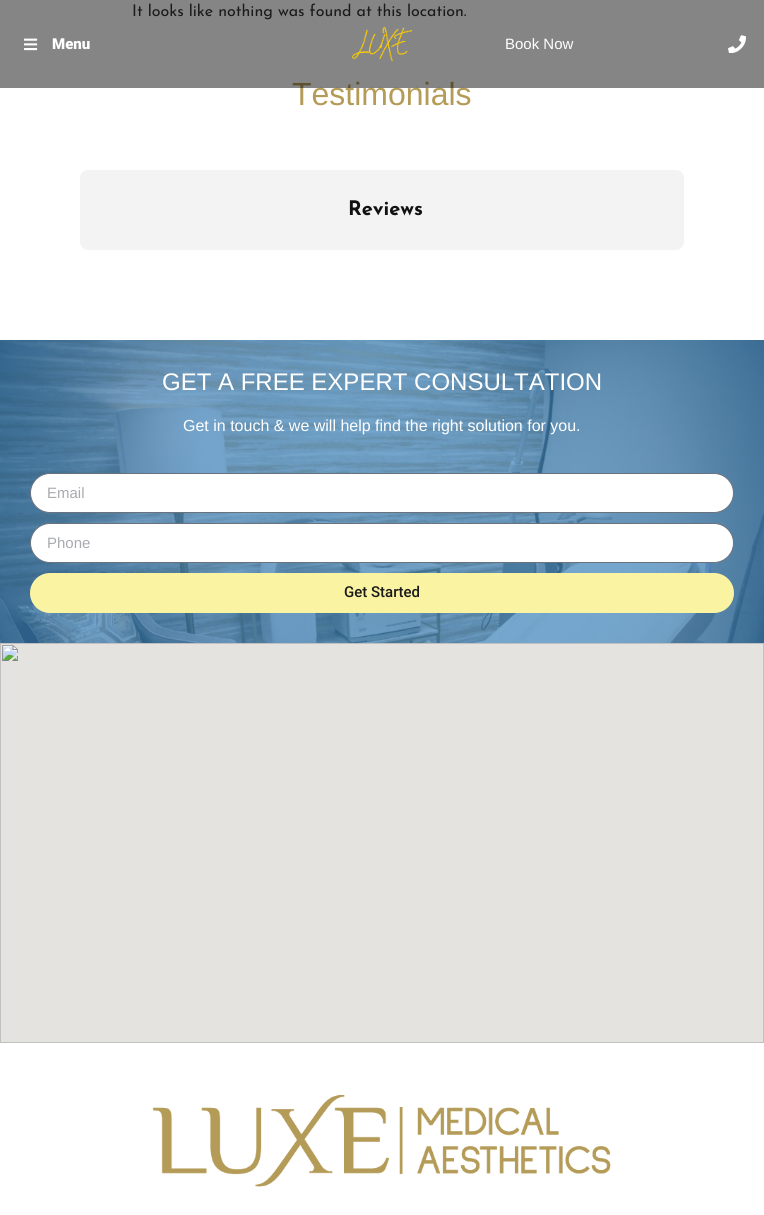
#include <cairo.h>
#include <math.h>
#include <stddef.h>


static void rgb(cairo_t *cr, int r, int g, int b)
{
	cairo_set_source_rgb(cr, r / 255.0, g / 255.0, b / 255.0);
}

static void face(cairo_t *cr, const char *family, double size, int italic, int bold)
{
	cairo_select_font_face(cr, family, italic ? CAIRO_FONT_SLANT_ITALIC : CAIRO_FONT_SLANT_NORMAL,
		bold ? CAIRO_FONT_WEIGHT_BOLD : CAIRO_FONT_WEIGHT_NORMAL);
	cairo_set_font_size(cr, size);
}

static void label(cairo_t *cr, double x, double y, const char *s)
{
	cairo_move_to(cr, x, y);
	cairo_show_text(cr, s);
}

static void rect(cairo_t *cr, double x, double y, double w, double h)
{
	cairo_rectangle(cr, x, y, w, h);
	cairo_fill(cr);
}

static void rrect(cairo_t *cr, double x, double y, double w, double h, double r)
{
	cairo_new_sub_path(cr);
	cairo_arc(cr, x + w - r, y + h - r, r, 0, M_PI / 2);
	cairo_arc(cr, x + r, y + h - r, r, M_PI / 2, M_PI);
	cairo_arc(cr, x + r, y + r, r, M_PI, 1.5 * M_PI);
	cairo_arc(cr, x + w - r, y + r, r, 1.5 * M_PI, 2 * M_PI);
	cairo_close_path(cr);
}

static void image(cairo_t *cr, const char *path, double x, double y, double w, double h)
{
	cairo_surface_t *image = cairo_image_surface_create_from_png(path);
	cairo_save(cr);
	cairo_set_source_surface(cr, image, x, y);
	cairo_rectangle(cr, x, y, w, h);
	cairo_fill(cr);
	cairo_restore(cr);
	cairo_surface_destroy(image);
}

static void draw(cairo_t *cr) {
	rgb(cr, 255, 255, 255);
	cairo_paint(cr);
	face(cr, "Josefin Sans", 16, 0, 0);
	rgb(cr, 51, 51, 51);
	label(cr, 132, 16, "It looks like nothing was found at this location.");
	face(cr, "Liberation Sans", 32, 0, 0);
	rgb(cr, 180, 155, 87);
	label(cr, 292, 105, "Testimonials");
	cairo_set_source_rgba(cr, 0, 0, 0, 0.48);
	rect(cr, 0, 0, 764, 88);
	image(cr, "image0.png", 24, 38, 14, 13);
	face(cr, "Roboto Black", 15, 0, 0);
	rgb(cr, 255, 255, 255);
	label(cr, 52, 49, "Menu");
	image(cr, "image1.png", 351, 26, 61, 36);
	face(cr, "Liberation Sans", 15, 0, 0);
	label(cr, 505, 49, "Book Now");
	image(cr, "image2.png", 728, 35, 18, 18);
	rgb(cr, 243, 243, 243);
	rrect(cr, 80, 170, 604, 80, 8);
	cairo_fill(cr);
	face(cr, "Josefin Sans", 20, 0, 1);
	rgb(cr, 17, 17, 17);
	label(cr, 348, 215, "Reviews");
	image(cr, "image3.png", 0, 340, 764, 303);
	face(cr, "Liberation Sans", 24, 0, 0);
	rgb(cr, 255, 255, 255);
	label(cr, 162, 390, "GET A FREE EXPERT CONSULTATION");
	face(cr, "Liberation Sans", 16, 0, 0);
	label(cr, 183, 431, "Get in touch & we will help find the right solution for you.");
	rrect(cr, 30.5, 473.5, 703, 39, 19.5);
	cairo_fill_preserve(cr);
	rgb(cr, 105, 114, 125);
	cairo_set_line_width(cr, 1);
	cairo_stroke(cr);
	face(cr, "Liberation Sans", 15, 0, 0);
	rgb(cr, 169, 170, 176);
	label(cr, 47, 498, "Email");
	rgb(cr, 255, 255, 255);
	rrect(cr, 30.5, 523.5, 703, 39, 19.5);
	cairo_fill_preserve(cr);
	rgb(cr, 105, 114, 125);
	cairo_stroke(cr);
	rgb(cr, 169, 170, 176);
	label(cr, 47, 548, "Phone");
	rgb(cr, 250, 243, 161);
	rrect(cr, 30, 573, 704, 40, 20);
	cairo_fill(cr);
	face(cr, "Roboto Medium", 15, 0, 0);
	rgb(cr, 26, 26, 26);
	label(cr, 344, 597, "Get Started");
	image(cr, "image4.png", 0, 643, 764, 400);
	image(cr, "image5.png", 153, 1095, 458, 92);
}

int main(void) {
	cairo_surface_t *surface = cairo_image_surface_create(CAIRO_FORMAT_RGB24, 764, 1215);
	cairo_t *cr = cairo_create(surface);
	cairo_font_options_t *options = cairo_font_options_create();
	cairo_font_options_set_hint_metrics(options, CAIRO_HINT_METRICS_OFF);
	cairo_font_options_set_hint_style(options, CAIRO_HINT_STYLE_NONE);
	cairo_set_font_options(cr, options);
	cairo_set_miter_limit(cr, 4);
	draw(cr);
	cairo_surface_write_to_png(surface, "render.png");
	cairo_font_options_destroy(options);
	cairo_destroy(cr);
	cairo_surface_destroy(surface);
	return 0;
}
